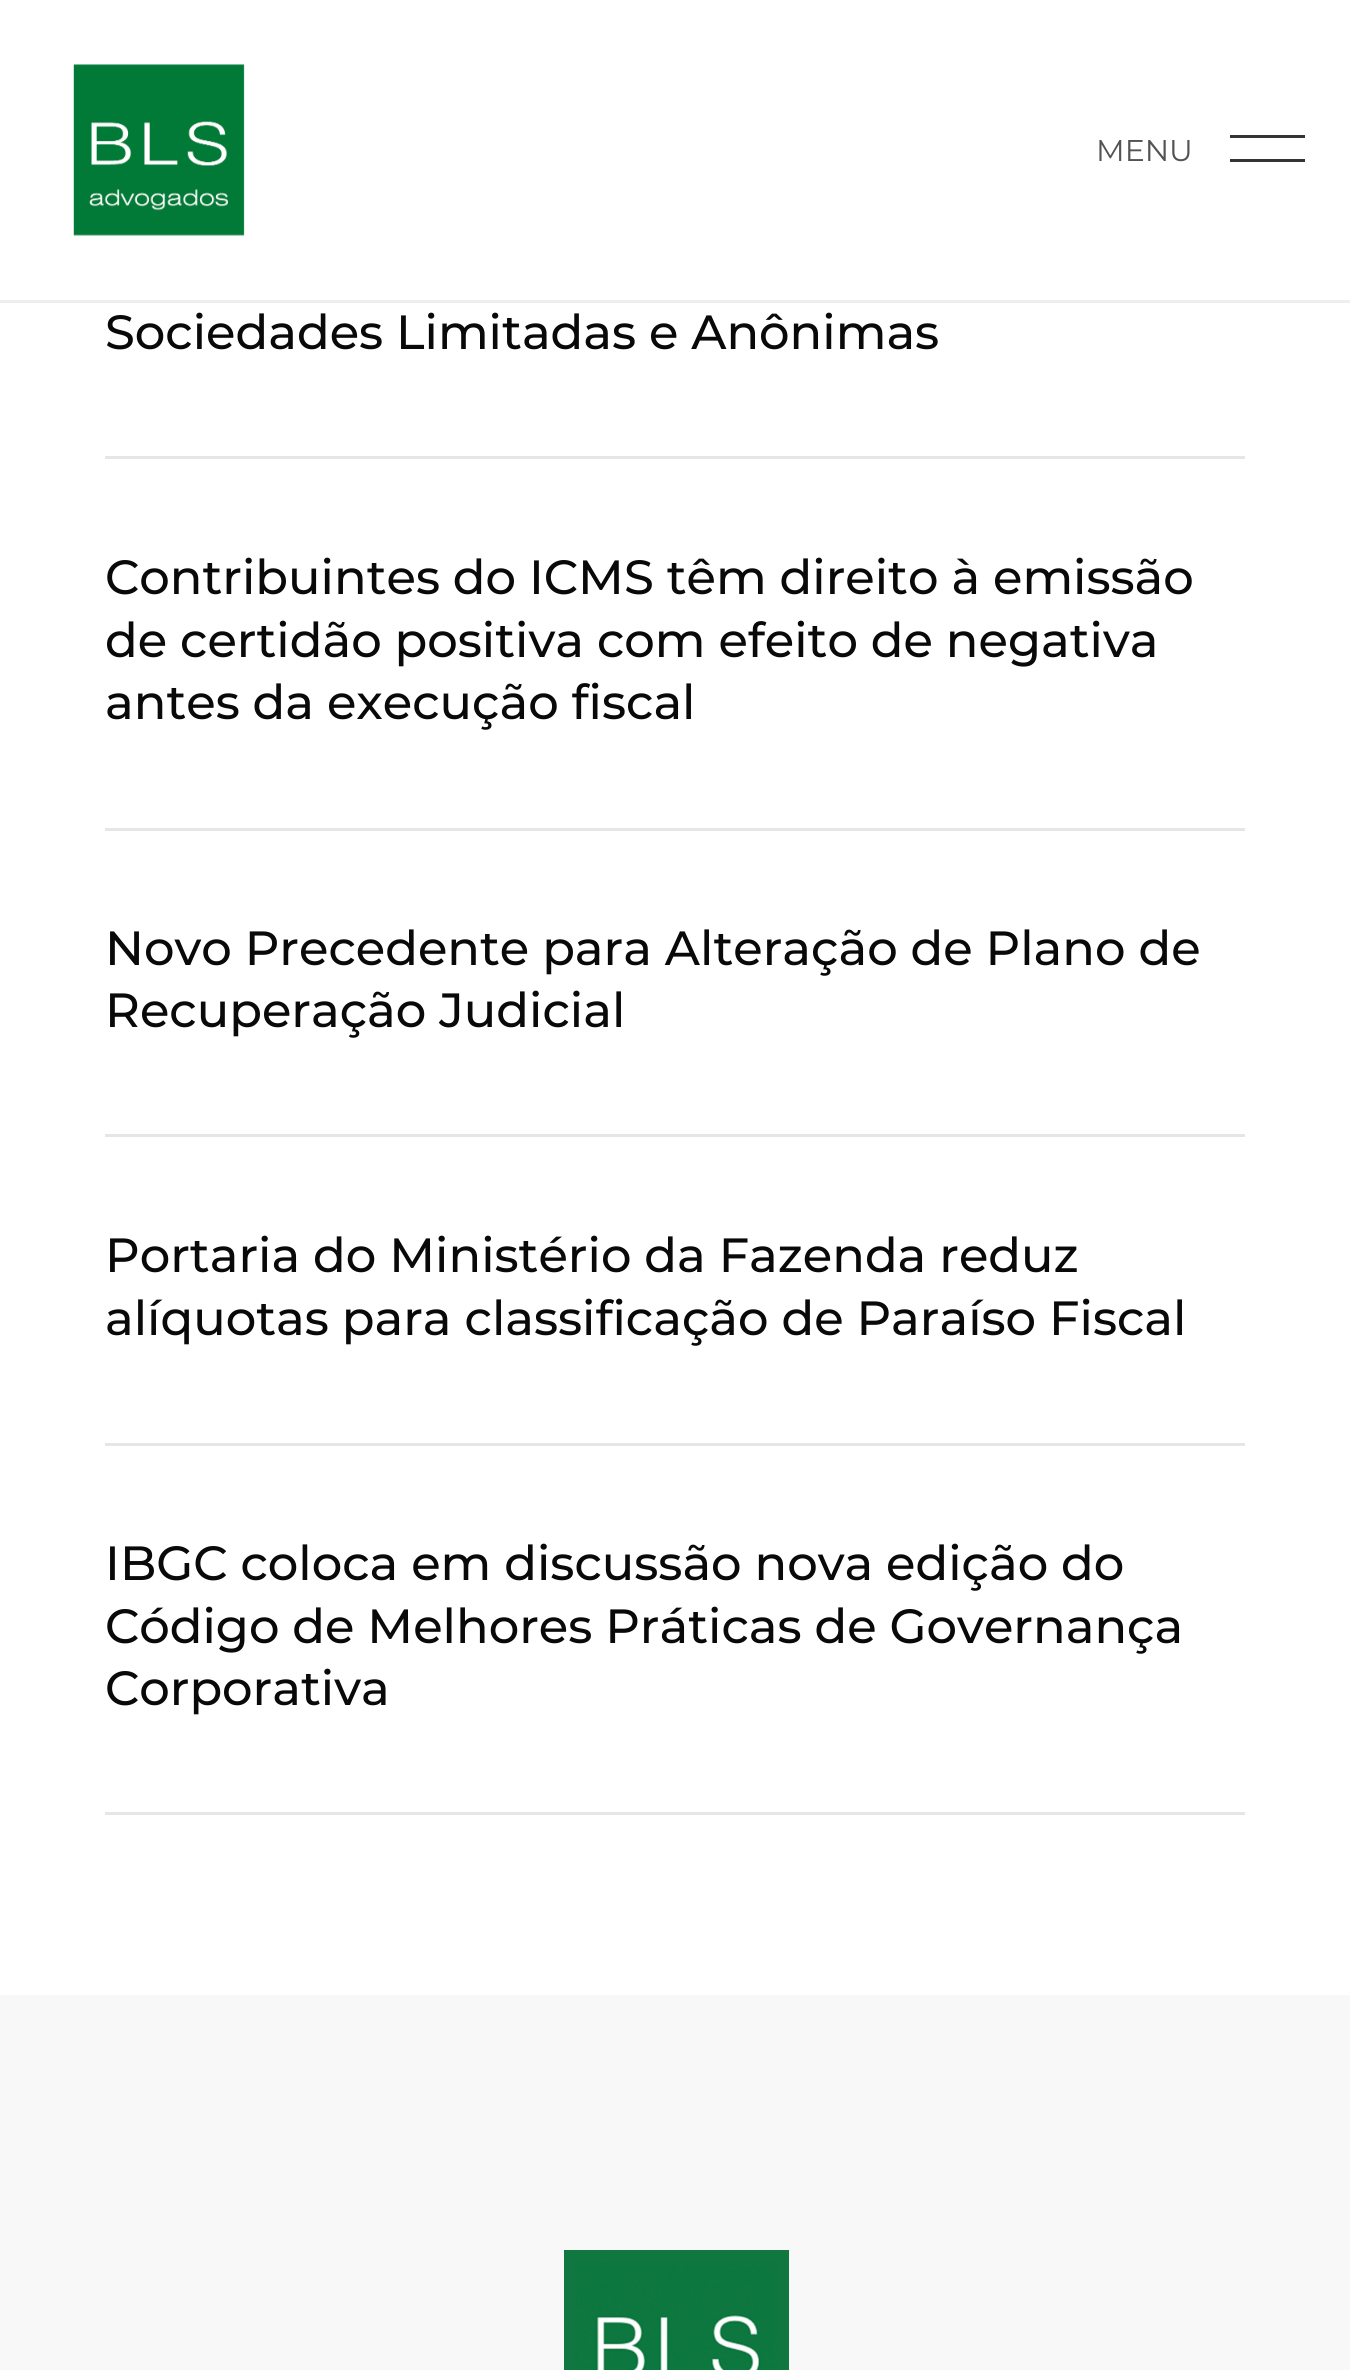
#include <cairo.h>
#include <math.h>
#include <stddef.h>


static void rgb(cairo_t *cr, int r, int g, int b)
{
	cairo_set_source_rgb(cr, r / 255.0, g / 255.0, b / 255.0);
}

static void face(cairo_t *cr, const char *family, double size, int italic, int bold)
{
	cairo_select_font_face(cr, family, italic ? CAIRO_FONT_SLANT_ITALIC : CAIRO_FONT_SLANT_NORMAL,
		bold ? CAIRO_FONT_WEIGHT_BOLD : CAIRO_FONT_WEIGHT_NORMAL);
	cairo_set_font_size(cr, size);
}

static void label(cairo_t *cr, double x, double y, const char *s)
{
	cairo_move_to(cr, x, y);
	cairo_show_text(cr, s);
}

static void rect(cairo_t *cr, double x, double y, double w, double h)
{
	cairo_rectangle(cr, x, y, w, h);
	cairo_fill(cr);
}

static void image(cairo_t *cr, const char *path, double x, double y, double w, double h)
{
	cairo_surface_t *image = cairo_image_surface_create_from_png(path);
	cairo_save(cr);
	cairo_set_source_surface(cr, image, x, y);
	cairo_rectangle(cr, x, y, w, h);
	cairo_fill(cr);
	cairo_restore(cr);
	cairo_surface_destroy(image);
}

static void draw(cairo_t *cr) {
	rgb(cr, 255, 255, 255);
	cairo_paint(cr);
	rgb(cr, 238, 238, 238);
	rect(cr, 0, 300, 1350, 3);
	image(cr, "image0.png", 73, 64, 172, 172);
	face(cr, "Montserrat", 30, 0, 0);
	rgb(cr, 83, 83, 83);
	label(cr, 1096, 161, "MENU");
	rgb(cr, 52, 52, 52);
	rect(cr, 1230, 135, 75, 3);
	rect(cr, 1230, 159, 75, 3);
	rgb(cr, 230, 230, 230);
	rect(cr, 105, 456, 1140, 3);
	face(cr, "Montserrat Medium", 48, 0, 0);
	rgb(cr, 9, 9, 9);
	label(cr, 105, 349, "Sociedades Limitadas e Anônimas");
	rgb(cr, 230, 230, 230);
	rect(cr, 105, 828, 1140, 3);
	rgb(cr, 9, 9, 9);
	label(cr, 105, 594, "Contribuintes do ICMS têm direito à emissão");
	label(cr, 105, 657, "de certidão positiva com efeito de negativa");
	label(cr, 105, 719, "antes da execução fiscal");
	rgb(cr, 230, 230, 230);
	rect(cr, 105, 1134, 1140, 3);
	rgb(cr, 9, 9, 9);
	label(cr, 105, 965, "Novo Precedente para Alteração de Plano de");
	label(cr, 105, 1027, "Recuperação Judicial");
	rgb(cr, 230, 230, 230);
	rect(cr, 105, 1443, 1140, 3);
	rgb(cr, 9, 9, 9);
	label(cr, 105, 1272, "Portaria do Ministério da Fazenda reduz");
	label(cr, 105, 1335, "alíquotas para classificação de Paraíso Fiscal");
	rgb(cr, 230, 230, 230);
	rect(cr, 105, 1812, 1140, 3);
	rgb(cr, 9, 9, 9);
	label(cr, 105, 1580, "IBGC coloca em discussão nova edição do");
	label(cr, 105, 1643, "Código de Melhores Práticas de Governança");
	label(cr, 105, 1705, "Corporativa");
	rgb(cr, 248, 248, 248);
	rect(cr, 0, 1995, 1350, 375);
	image(cr, "image1.png", 564, 2250, 225, 120);
}

int main(void) {
	cairo_surface_t *surface = cairo_image_surface_create(CAIRO_FORMAT_RGB24, 1350, 2370);
	cairo_t *cr = cairo_create(surface);
	cairo_font_options_t *options = cairo_font_options_create();
	cairo_font_options_set_hint_metrics(options, CAIRO_HINT_METRICS_OFF);
	cairo_font_options_set_hint_style(options, CAIRO_HINT_STYLE_NONE);
	cairo_set_font_options(cr, options);
	cairo_set_miter_limit(cr, 4);
	draw(cr);
	cairo_surface_write_to_png(surface, "render.png");
	cairo_font_options_destroy(options);
	cairo_destroy(cr);
	cairo_surface_destroy(surface);
	return 0;
}
